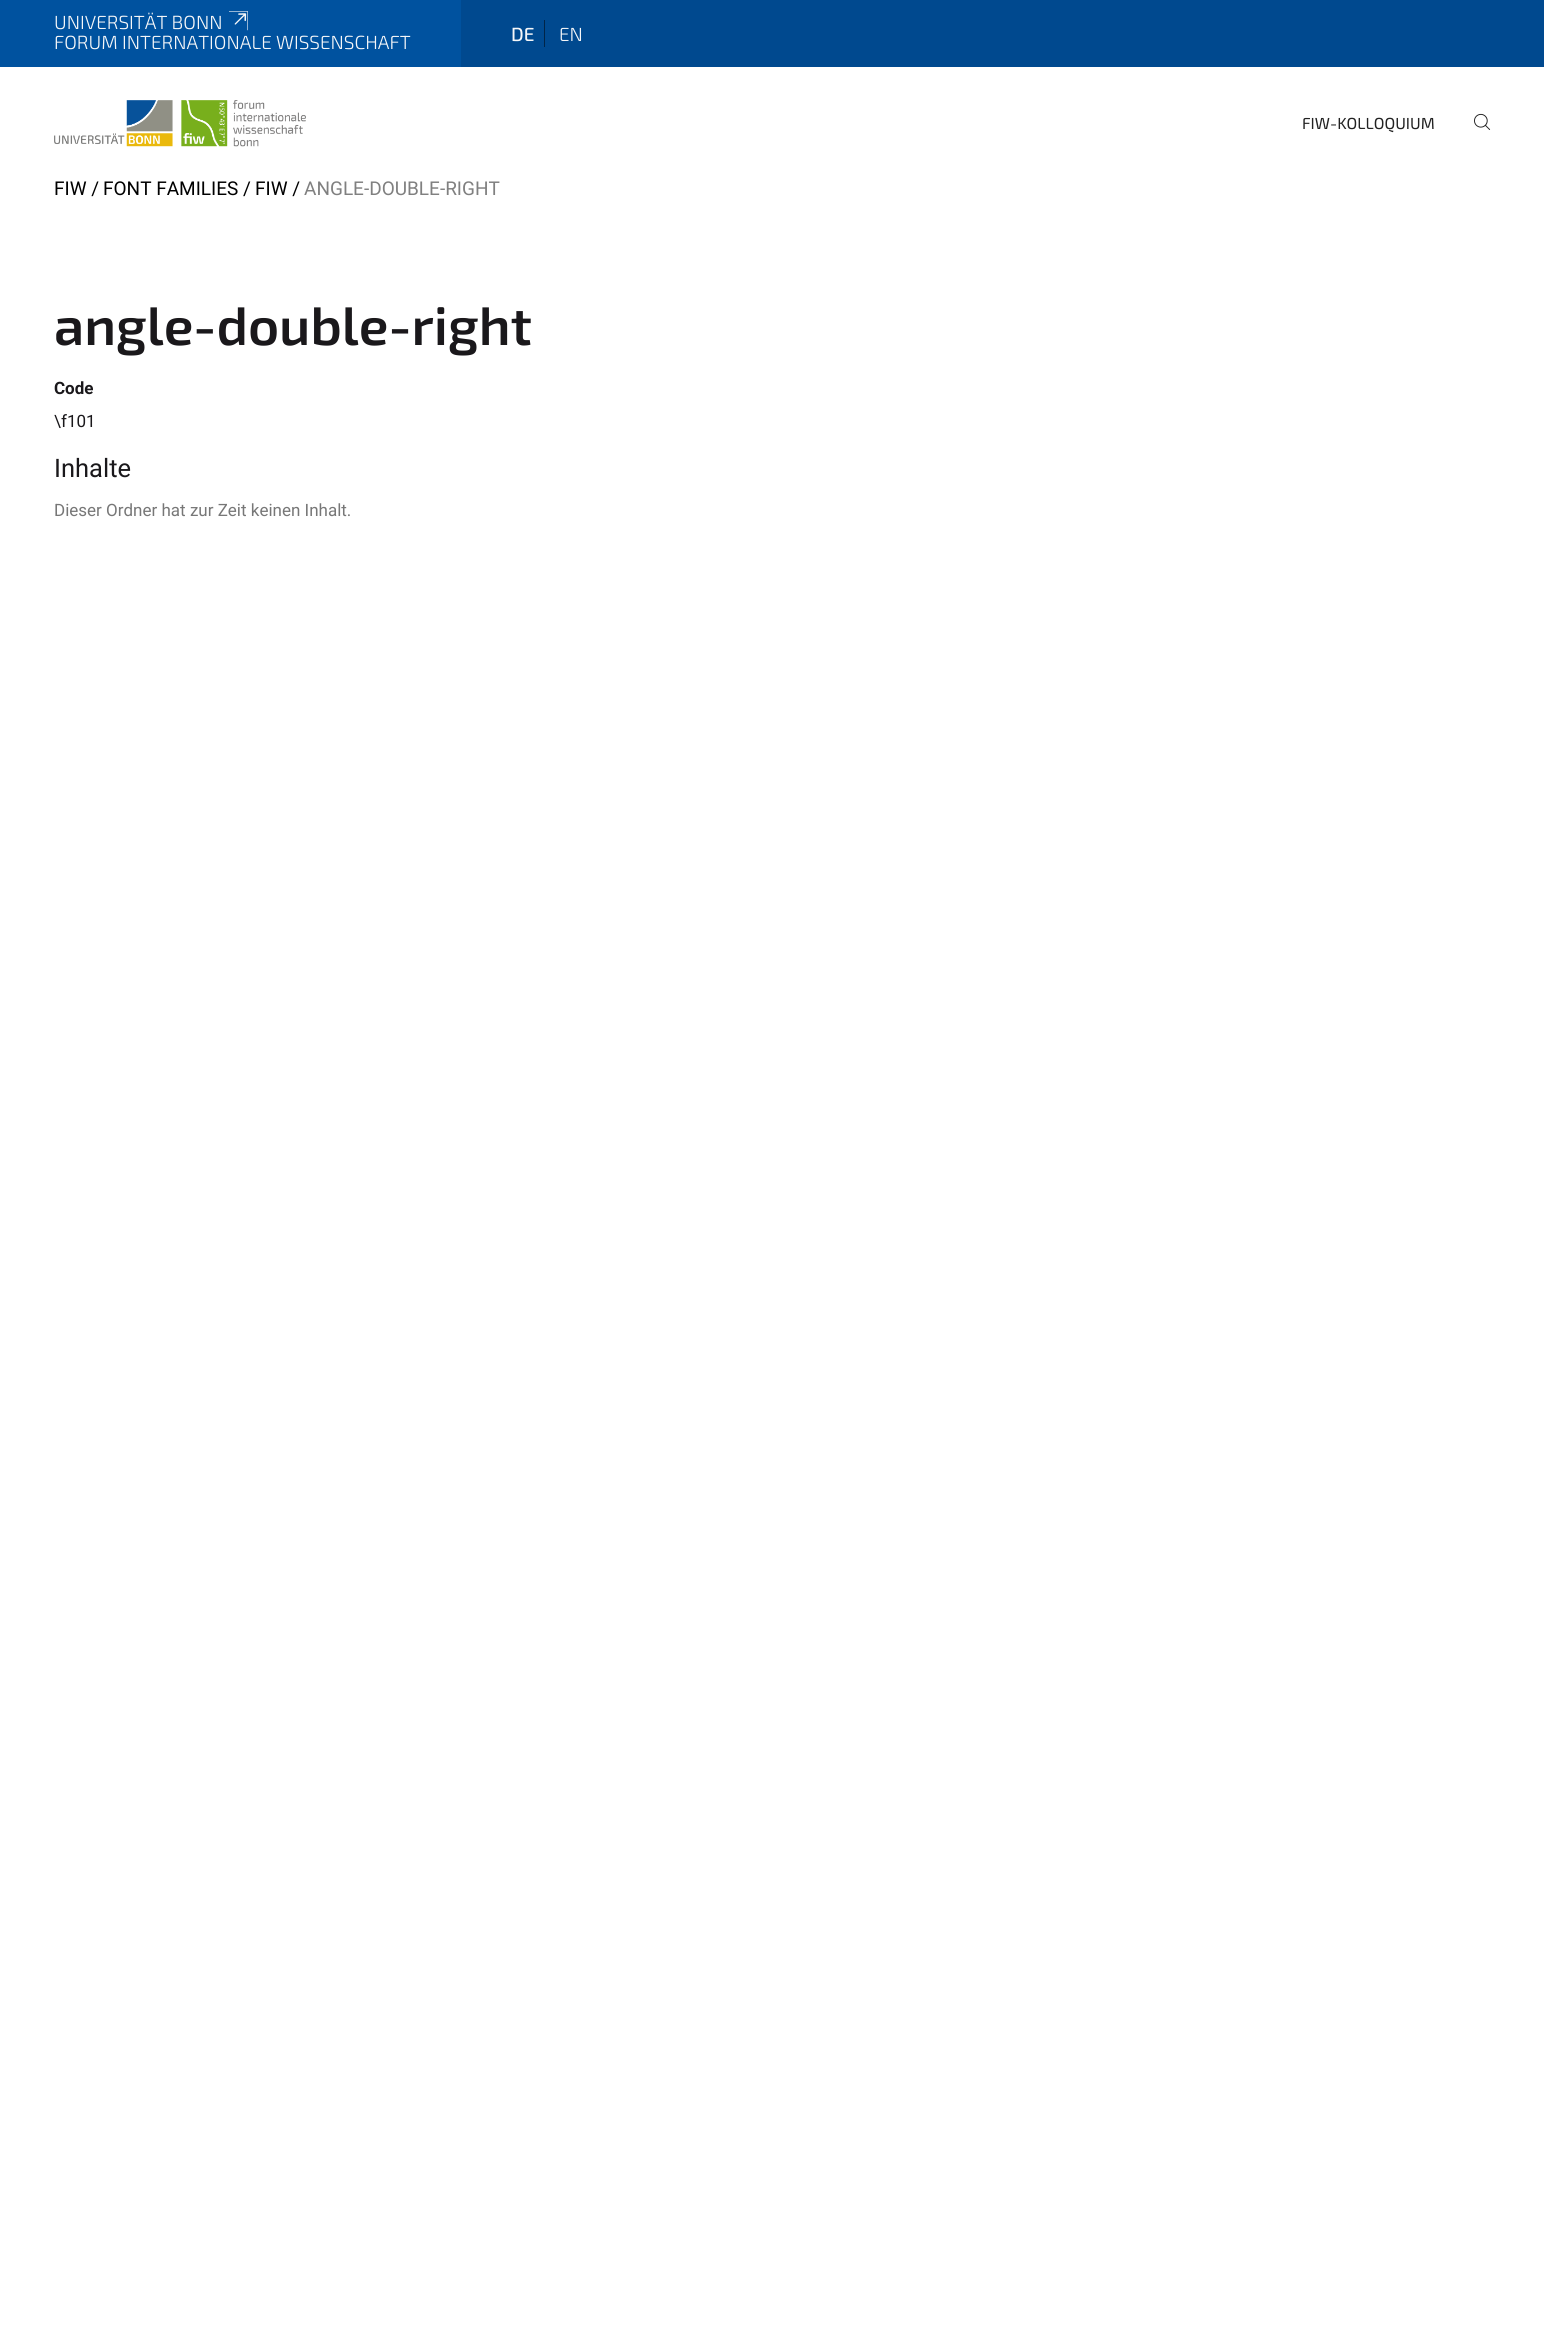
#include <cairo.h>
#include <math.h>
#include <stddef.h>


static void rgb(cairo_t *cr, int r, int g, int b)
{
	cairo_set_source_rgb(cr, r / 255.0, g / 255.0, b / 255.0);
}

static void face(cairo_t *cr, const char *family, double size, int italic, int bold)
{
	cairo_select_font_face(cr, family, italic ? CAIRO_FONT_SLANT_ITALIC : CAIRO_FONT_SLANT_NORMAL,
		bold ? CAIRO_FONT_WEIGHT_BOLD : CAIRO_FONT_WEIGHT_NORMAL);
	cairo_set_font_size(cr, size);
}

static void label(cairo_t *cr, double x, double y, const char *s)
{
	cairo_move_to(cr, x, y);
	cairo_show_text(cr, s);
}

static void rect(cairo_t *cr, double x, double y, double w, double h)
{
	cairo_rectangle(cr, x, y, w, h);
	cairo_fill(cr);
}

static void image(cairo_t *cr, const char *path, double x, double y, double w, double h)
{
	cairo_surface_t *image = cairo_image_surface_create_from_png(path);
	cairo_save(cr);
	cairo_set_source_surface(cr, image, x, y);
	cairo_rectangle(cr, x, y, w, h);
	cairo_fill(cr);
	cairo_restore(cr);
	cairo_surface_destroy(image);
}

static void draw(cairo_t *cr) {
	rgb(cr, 255, 255, 255);
	cairo_paint(cr);
	rgb(cr, 0, 73, 143);
	rect(cr, 461, 0, 1083, 67);
	rgb(cr, 0, 82, 159);
	rect(cr, 0, 0, 461, 67);
	face(cr, "Exo 2 Light", 19, 0, 0);
	rgb(cr, 246, 247, 249);
	label(cr, 54, 29, "UNIVERSITÄT BONN");
	image(cr, "image0.png", 229, 11, 19, 20);
	label(cr, 54, 49, "FORUM INTERNATIONALE WISSENSCHAFT");
	rgb(cr, 1, 37, 72);
	rect(cr, 544, 20, 1, 27);
	face(cr, "Exo 2 Medium", 19, 0, 0);
	rgb(cr, 246, 247, 249);
	label(cr, 511, 41, "DE");
	face(cr, "Exo 2 Light", 19, 0, 0);
	label(cr, 559, 41, "EN");
	image(cr, "image1.png", 54, 100, 252, 47);
	face(cr, "Exo 2", 16, 0, 0);
	rgb(cr, 34, 34, 34);
	label(cr, 1302, 129, "FIW-KOLLOQUIUM");
	image(cr, "image2.png", 1474, 113, 17, 17);
	face(cr, "Roboto", 19, 0, 0);
	rgb(cr, 0, 0, 0);
	label(cr, 54, 195, "FIW /");
	label(cr, 103, 195, "FONT FAMILIES /");
	label(cr, 255, 195, "FIW /");
	rgb(cr, 128, 128, 128);
	label(cr, 304, 195, "ANGLE-DOUBLE-RIGHT");
	face(cr, "Exo 2 SemiBold", 53.75, 0, 0);
	rgb(cr, 26, 24, 27);
	label(cr, 54, 345, "angle-double-right");
	face(cr, "Roboto", 17, 0, 1);
	label(cr, 54, 394, "Code");
	face(cr, "Roboto", 17, 0, 0);
	label(cr, 54, 427, "\\f101");
	face(cr, "Roboto", 25.5, 0, 0);
	label(cr, 54, 477, "Inhalte");
	face(cr, "Roboto", 17, 0, 0);
	rgb(cr, 119, 119, 119);
	label(cr, 54, 516, "Dieser Ordner hat zur Zeit keinen Inhalt.");
}

int main(void) {
	cairo_surface_t *surface = cairo_image_surface_create(CAIRO_FORMAT_RGB24, 1544, 2326);
	cairo_t *cr = cairo_create(surface);
	cairo_font_options_t *options = cairo_font_options_create();
	cairo_font_options_set_hint_metrics(options, CAIRO_HINT_METRICS_OFF);
	cairo_font_options_set_hint_style(options, CAIRO_HINT_STYLE_NONE);
	cairo_set_font_options(cr, options);
	cairo_set_miter_limit(cr, 4);
	draw(cr);
	cairo_surface_write_to_png(surface, "render.png");
	cairo_font_options_destroy(options);
	cairo_destroy(cr);
	cairo_surface_destroy(surface);
	return 0;
}
